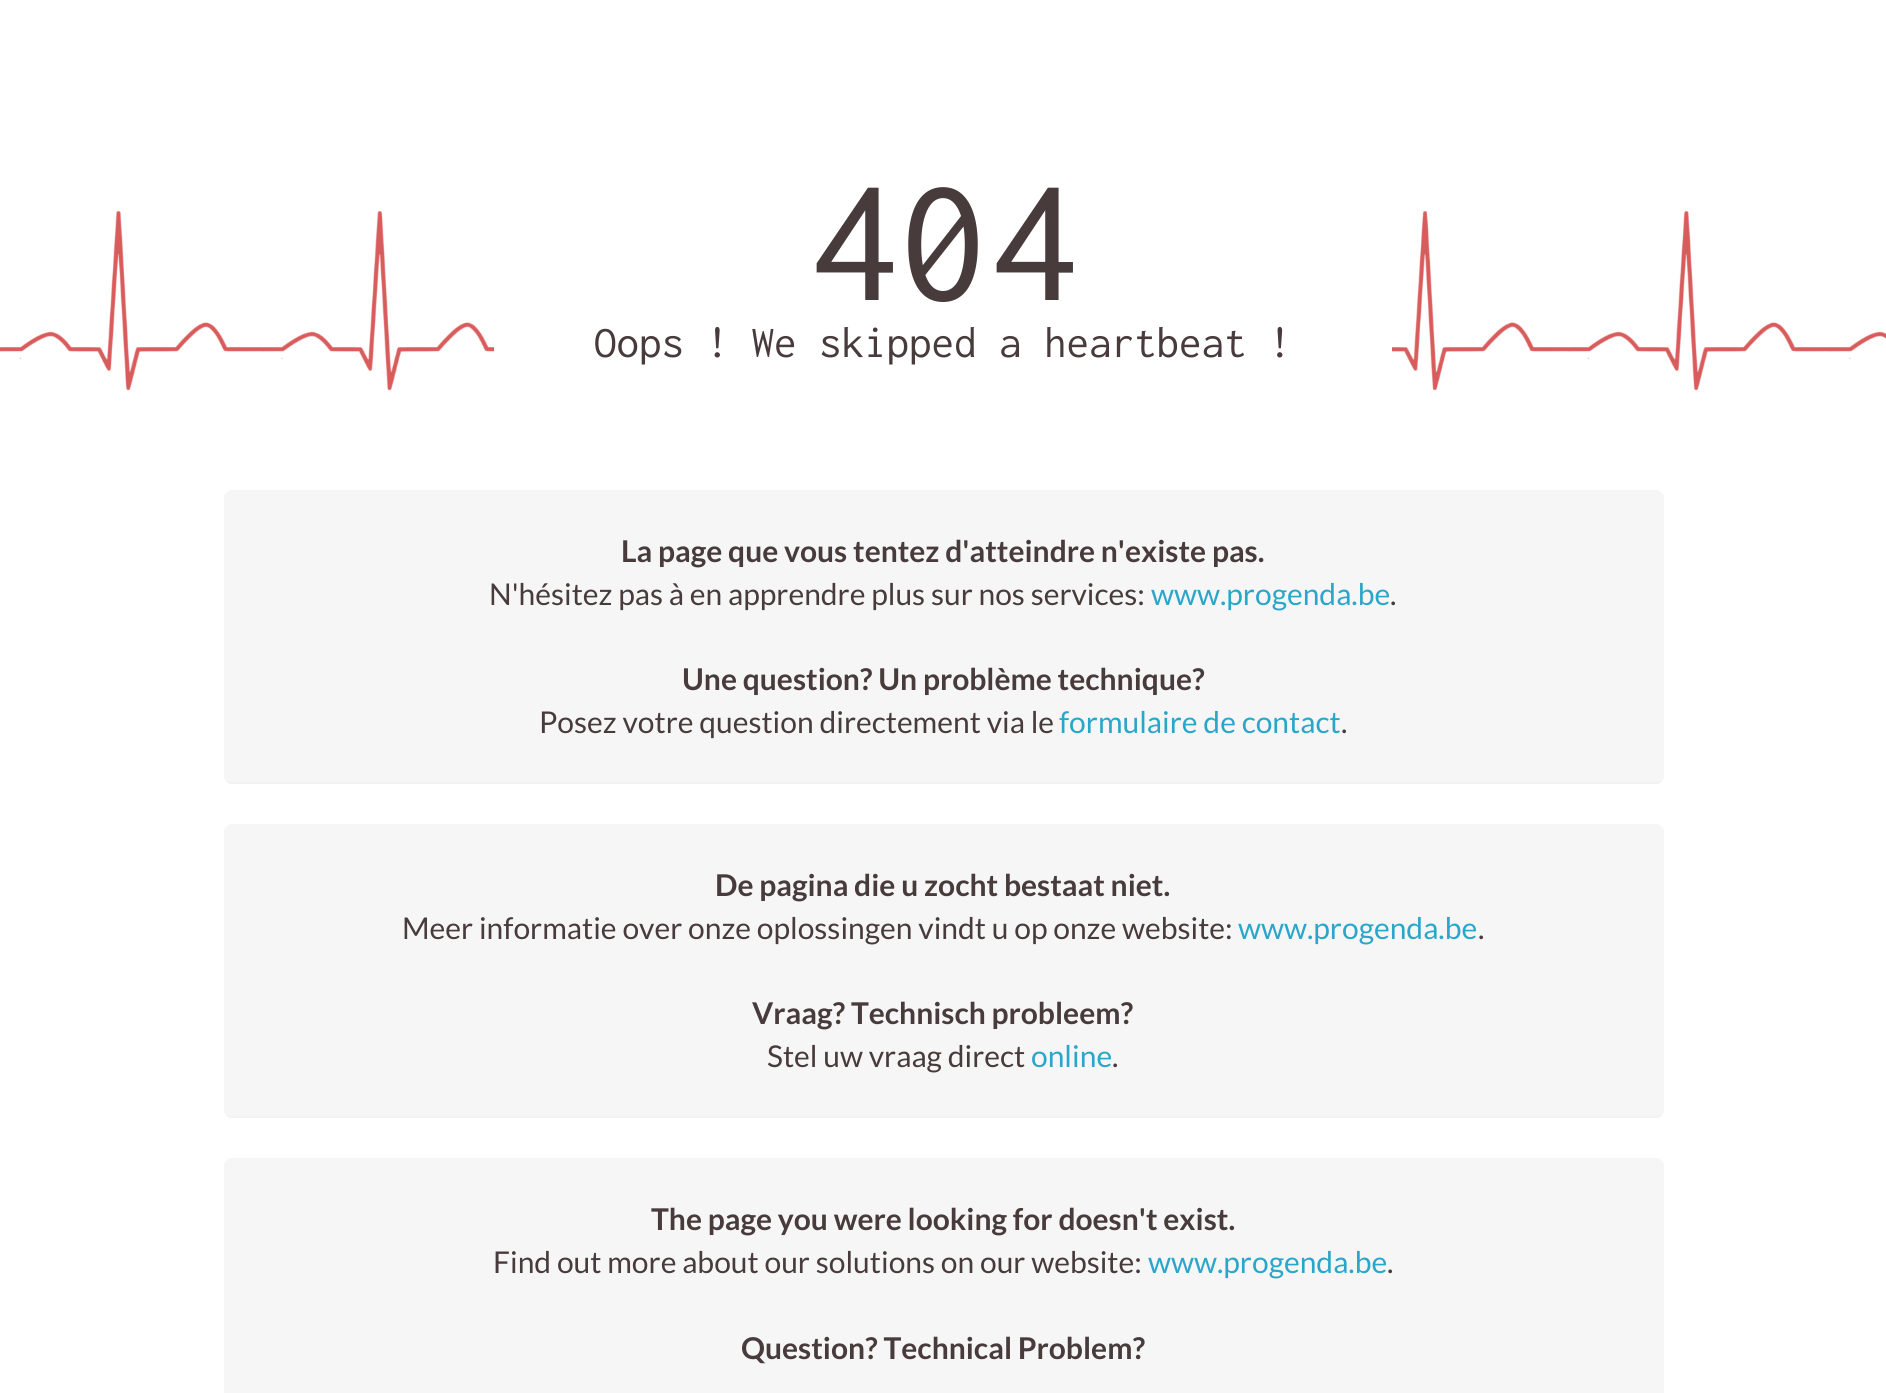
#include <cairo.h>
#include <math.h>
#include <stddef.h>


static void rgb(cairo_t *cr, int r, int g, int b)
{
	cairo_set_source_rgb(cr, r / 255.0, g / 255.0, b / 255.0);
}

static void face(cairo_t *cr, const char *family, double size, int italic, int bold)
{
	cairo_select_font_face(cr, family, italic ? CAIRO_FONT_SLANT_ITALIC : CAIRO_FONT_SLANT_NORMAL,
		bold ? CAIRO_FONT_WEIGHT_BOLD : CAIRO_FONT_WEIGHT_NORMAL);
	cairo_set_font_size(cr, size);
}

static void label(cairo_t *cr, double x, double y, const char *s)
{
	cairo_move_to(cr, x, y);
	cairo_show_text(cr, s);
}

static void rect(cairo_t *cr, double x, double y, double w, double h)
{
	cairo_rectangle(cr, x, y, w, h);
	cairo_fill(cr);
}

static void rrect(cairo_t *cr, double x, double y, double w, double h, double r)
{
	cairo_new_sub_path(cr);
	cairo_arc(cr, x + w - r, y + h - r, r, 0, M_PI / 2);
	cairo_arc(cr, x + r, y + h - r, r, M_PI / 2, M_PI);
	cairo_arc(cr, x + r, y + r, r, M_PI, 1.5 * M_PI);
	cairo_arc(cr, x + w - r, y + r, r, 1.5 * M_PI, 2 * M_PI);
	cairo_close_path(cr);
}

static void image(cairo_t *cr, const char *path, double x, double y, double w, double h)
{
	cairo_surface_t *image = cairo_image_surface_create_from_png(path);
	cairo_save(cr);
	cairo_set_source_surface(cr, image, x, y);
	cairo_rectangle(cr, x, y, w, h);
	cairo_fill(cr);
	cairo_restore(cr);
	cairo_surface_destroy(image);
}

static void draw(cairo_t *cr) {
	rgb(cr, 255, 255, 255);
	cairo_paint(cr);
	image(cr, "image0.png", 0, 210, 1886, 181);
	rgb(cr, 255, 255, 255);
	rect(cr, 494, 210, 898, 181);
	face(cr, "Inconsolata", 180, 0, 0);
	rgb(cr, 72, 59, 59);
	label(cr, 808, 300, "404");
	face(cr, "Inconsolata", 45, 0, 0);
	label(cr, 594, 357, "Oops ! We skipped a heartbeat !");
	rgb(cr, 246, 246, 246);
	rrect(cr, 224, 490, 1440, 294, 8);
	cairo_fill(cr);
	cairo_new_path(cr);
	cairo_move_to(cr, 1661, 781);
	cairo_curve_to(cr, 1659.5, 782.5, 1658, 783, 1656, 783);
	cairo_line_to(cr, 232, 783);
	cairo_curve_to(cr, 230, 783, 228.5, 782.5, 227, 781);
	rgb(cr, 242, 242, 242);
	cairo_stroke(cr);
	face(cr, "Lato", 30, 0, 1);
	rgb(cr, 72, 59, 59);
	label(cr, 621, 562, "La page que vous tentez d'atteindre n'existe pas.");
	face(cr, "Lato", 30, 0, 0);
	label(cr, 489, 605, "N'hésitez pas à en apprendre plus sur nos services:");
	rgb(cr, 43, 166, 203);
	label(cr, 1151, 605, "www.progenda.be");
	rgb(cr, 72, 59, 59);
	label(cr, 1390, 605, ".");
	face(cr, "Lato", 30, 0, 1);
	label(cr, 682, 690, "Une question? Un problème technique?");
	face(cr, "Lato", 30, 0, 0);
	label(cr, 539, 733, "Posez votre question directement via le");
	rgb(cr, 43, 166, 203);
	label(cr, 1059, 733, "formulaire de contact");
	rgb(cr, 72, 59, 59);
	label(cr, 1341, 733, ".");
	rgb(cr, 246, 246, 246);
	rrect(cr, 224, 824, 1440, 294, 8);
	cairo_fill(cr);
	cairo_new_path(cr);
	cairo_move_to(cr, 1661, 1115);
	cairo_curve_to(cr, 1659.5, 1116.5, 1658, 1117, 1656, 1117);
	cairo_line_to(cr, 232, 1117);
	cairo_curve_to(cr, 230, 1117, 228.5, 1116.5, 227, 1115);
	rgb(cr, 242, 242, 242);
	cairo_stroke(cr);
	face(cr, "Lato", 30, 0, 1);
	rgb(cr, 72, 59, 59);
	label(cr, 715, 896, "De pagina die u zocht bestaat niet.");
	face(cr, "Lato", 30, 0, 0);
	label(cr, 402, 939, "Meer informatie over onze oplossingen vindt u op onze website:");
	rgb(cr, 43, 166, 203);
	label(cr, 1238, 939, "www.progenda.be");
	rgb(cr, 72, 59, 59);
	label(cr, 1478, 939, ".");
	face(cr, "Lato", 30, 0, 1);
	label(cr, 752, 1024, "Vraag? Technisch probleem?");
	face(cr, "Lato", 30, 0, 0);
	label(cr, 767, 1067, "Stel uw vraag direct");
	rgb(cr, 43, 166, 203);
	label(cr, 1031, 1067, "online");
	rgb(cr, 72, 59, 59);
	label(cr, 1112, 1067, ".");
	rgb(cr, 246, 246, 246);
	rrect(cr, 224, 1158, 1440, 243, 8);
	cairo_fill(cr);
	face(cr, "Lato", 30, 0, 1);
	rgb(cr, 72, 59, 59);
	label(cr, 651, 1230, "The page you were looking for doesn't exist.");
	face(cr, "Lato", 30, 0, 0);
	label(cr, 493, 1273, "Find out more about our solutions on our website:");
	rgb(cr, 43, 166, 203);
	label(cr, 1148, 1273, "www.progenda.be");
	rgb(cr, 72, 59, 59);
	label(cr, 1387, 1273, ".");
	face(cr, "Lato", 30, 0, 1);
	label(cr, 741, 1359, "Question? Technical Problem?");
}

int main(void) {
	cairo_surface_t *surface = cairo_image_surface_create(CAIRO_FORMAT_RGB24, 1886, 1393);
	cairo_t *cr = cairo_create(surface);
	cairo_font_options_t *options = cairo_font_options_create();
	cairo_font_options_set_hint_metrics(options, CAIRO_HINT_METRICS_OFF);
	cairo_font_options_set_hint_style(options, CAIRO_HINT_STYLE_NONE);
	cairo_set_font_options(cr, options);
	cairo_set_miter_limit(cr, 4);
	draw(cr);
	cairo_surface_write_to_png(surface, "render.png");
	cairo_font_options_destroy(options);
	cairo_destroy(cr);
	cairo_surface_destroy(surface);
	return 0;
}
